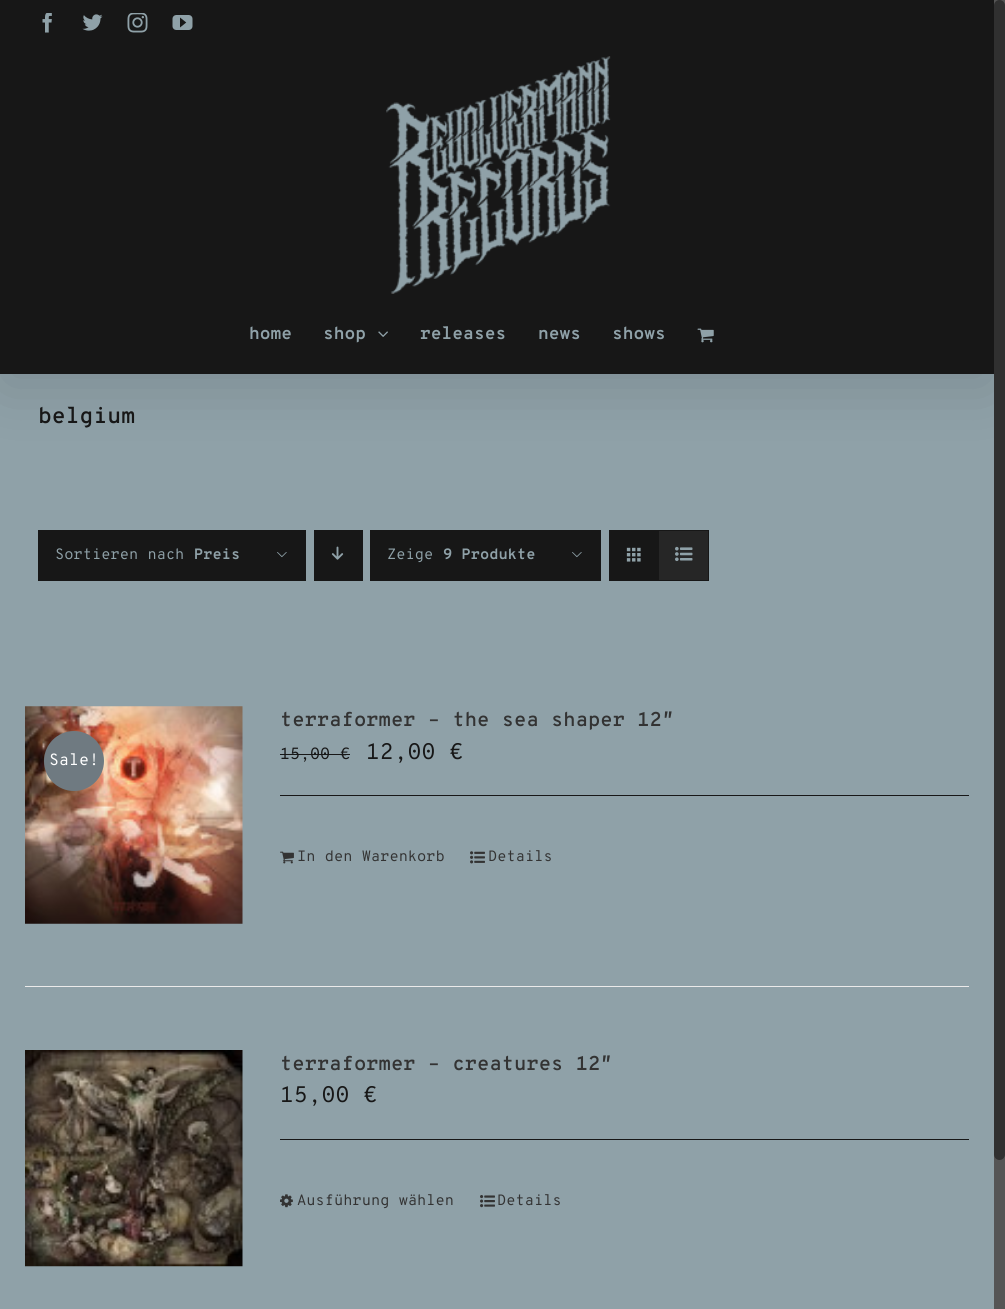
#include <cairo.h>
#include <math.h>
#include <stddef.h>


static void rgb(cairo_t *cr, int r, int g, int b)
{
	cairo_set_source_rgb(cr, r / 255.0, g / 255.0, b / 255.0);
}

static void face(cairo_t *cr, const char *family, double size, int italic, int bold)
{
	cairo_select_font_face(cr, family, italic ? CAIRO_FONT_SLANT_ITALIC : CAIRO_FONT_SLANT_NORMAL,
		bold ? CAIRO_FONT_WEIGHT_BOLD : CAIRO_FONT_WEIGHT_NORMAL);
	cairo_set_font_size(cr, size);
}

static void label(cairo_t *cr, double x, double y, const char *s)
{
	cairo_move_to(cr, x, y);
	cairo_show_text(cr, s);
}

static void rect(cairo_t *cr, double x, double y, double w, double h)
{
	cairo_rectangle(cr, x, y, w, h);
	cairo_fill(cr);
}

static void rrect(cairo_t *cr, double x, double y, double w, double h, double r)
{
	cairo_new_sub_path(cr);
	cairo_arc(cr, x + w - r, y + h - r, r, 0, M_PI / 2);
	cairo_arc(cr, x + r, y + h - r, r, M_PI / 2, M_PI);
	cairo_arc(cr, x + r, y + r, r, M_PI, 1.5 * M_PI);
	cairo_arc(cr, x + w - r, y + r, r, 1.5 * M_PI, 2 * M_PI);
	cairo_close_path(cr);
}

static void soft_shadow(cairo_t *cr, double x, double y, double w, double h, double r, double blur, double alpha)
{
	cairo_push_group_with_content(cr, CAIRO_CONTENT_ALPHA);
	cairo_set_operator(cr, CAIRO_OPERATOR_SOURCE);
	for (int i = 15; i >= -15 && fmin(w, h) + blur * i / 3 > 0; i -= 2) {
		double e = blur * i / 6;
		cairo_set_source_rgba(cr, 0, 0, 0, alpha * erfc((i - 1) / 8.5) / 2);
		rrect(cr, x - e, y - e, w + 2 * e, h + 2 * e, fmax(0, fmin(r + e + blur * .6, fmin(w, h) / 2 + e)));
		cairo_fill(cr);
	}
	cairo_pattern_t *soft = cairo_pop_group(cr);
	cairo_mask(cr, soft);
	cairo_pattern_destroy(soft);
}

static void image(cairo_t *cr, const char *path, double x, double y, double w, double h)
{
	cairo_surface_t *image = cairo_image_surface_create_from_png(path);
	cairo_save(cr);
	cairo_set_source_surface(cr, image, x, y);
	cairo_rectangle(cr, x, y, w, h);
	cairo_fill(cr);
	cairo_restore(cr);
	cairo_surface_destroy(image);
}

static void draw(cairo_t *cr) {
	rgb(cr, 143, 161, 168);
	cairo_paint(cr);
	rgb(cr, 0, 0, 0);
	soft_shadow(cr, 3, 15, 988, 369, 0, 31, 0.14);
	rgb(cr, 23, 23, 23);
	rect(cr, 0, 0, 994, 46);
	image(cr, "image0.png", 42, 13, 10, 20);
	image(cr, "image1.png", 82, 14, 21, 17);
	image(cr, "image2.png", 127, 13, 21, 20);
	image(cr, "image3.png", 172, 15, 21, 15);
	rect(cr, 0, 46, 994, 328);
	image(cr, "image4.png", 386, 56, 225, 238);
	face(cr, "Overpass Mono", 17.5, 0, 1);
	rgb(cr, 143, 161, 168);
	label(cr, 249, 339, "home");
	label(cr, 323, 339, "shop");
	image(cr, "image5.png", 378, 331, 10, 6);
	label(cr, 420, 339, "releases");
	label(cr, 538, 339, "news");
	label(cr, 612, 339, "shows");
	image(cr, "image6.png", 697, 328, 17, 15);
	face(cr, "Overpass Mono SemiBold", 22.5, 0, 0);
	rgb(cr, 23, 23, 23);
	label(cr, 38, 423, "belgium");
	rect(cr, 38, 530, 268, 51);
	face(cr, "Overpass Mono", 15, 0, 0);
	rgb(cr, 143, 161, 168);
	label(cr, 55, 559, "Sortieren nach");
	face(cr, "Overpass Mono", 15, 0, 1);
	label(cr, 194, 559, "Preis");
	image(cr, "image7.png", 277, 552, 10, 6);
	rgb(cr, 23, 23, 23);
	rect(cr, 314, 530, 49, 51);
	image(cr, "image8.png", 331, 546, 13, 14);
	rect(cr, 370, 530, 231, 51);
	face(cr, "Overpass Mono", 15, 0, 0);
	rgb(cr, 143, 161, 168);
	label(cr, 387, 559, "Zeige");
	face(cr, "Overpass Mono", 15, 0, 1);
	label(cr, 443, 559, "9 Produkte");
	image(cr, "image7.png", 572, 552, 10, 6);
	cairo_rectangle(cr, 609.5, 530.5, 99, 50);
	rgb(cr, 23, 23, 23);
	cairo_set_line_width(cr, 1);
	cairo_stroke(cr);
	rect(cr, 610, 531, 49, 49);
	image(cr, "image9.png", 626, 547, 15, 15);
	rgb(cr, 38, 38, 38);
	rect(cr, 659, 531, 49, 49);
	image(cr, "image10.png", 675, 546, 18, 16);
	rgb(cr, 235, 234, 234);
	rect(cr, 25, 986, 944, 1);
	image(cr, "image11.png", 25, 706, 218, 218);
	rgb(cr, 111, 122, 129);
	cairo_arc(cr, 74, 761, 30, 0, 2 * M_PI);
	cairo_fill(cr);
	face(cr, "Overpass Mono", 16.25, 0, 0);
	rgb(cr, 255, 255, 255);
	label(cr, 49, 765, "Sale!");
	face(cr, "Overpass Mono SemiBold", 20, 0, 0);
	rgb(cr, 51, 51, 51);
	label(cr, 280, 726, "terraformer – the sea shaper 12″");
	face(cr, "Overpass Mono", 16.25, 0, 0);
	rgb(cr, 23, 23, 23);
	label(cr, 280, 759, "15,00 €");
	rect(cr, 280, 754, 70, 1);
	face(cr, "Overpass Mono", 22.5, 0, 0);
	label(cr, 366, 759, "12,00 €");
	rect(cr, 280, 795, 689, 1);
	image(cr, "image12.png", 280, 851, 14, 13);
	face(cr, "Overpass Mono", 15, 0, 0);
	rgb(cr, 51, 51, 51);
	label(cr, 297, 861, "In den Warenkorb");
	image(cr, "image13.png", 470, 851, 15, 13);
	label(cr, 488, 861, "Details");
	image(cr, "image14.png", 25, 1050, 218, 217);
	face(cr, "Overpass Mono SemiBold", 20, 0, 0);
	label(cr, 280, 1070, "terraformer – creatures 12″");
	face(cr, "Overpass Mono", 22.5, 0, 0);
	rgb(cr, 23, 23, 23);
	label(cr, 280, 1102, "15,00 €");
	rect(cr, 280, 1139, 689, 1);
	image(cr, "image15.png", 280, 1194, 13, 14);
	face(cr, "Overpass Mono", 15, 0, 0);
	rgb(cr, 51, 51, 51);
	label(cr, 297, 1205, "Ausführung wählen");
	image(cr, "image16.png", 480, 1195, 15, 13);
	label(cr, 497, 1205, "Details");
	rgb(cr, 85, 85, 85);
	rect(cr, 994, 0, 11, 1309);
	rgb(cr, 48, 48, 48);
	rrect(cr, 994, 0, 11, 1160, 5.5);
	cairo_fill(cr);
}

int main(void) {
	cairo_surface_t *surface = cairo_image_surface_create(CAIRO_FORMAT_RGB24, 1005, 1309);
	cairo_t *cr = cairo_create(surface);
	cairo_font_options_t *options = cairo_font_options_create();
	cairo_font_options_set_hint_metrics(options, CAIRO_HINT_METRICS_OFF);
	cairo_font_options_set_hint_style(options, CAIRO_HINT_STYLE_NONE);
	cairo_set_font_options(cr, options);
	cairo_set_miter_limit(cr, 4);
	draw(cr);
	cairo_surface_write_to_png(surface, "render.png");
	cairo_font_options_destroy(options);
	cairo_destroy(cr);
	cairo_surface_destroy(surface);
	return 0;
}
